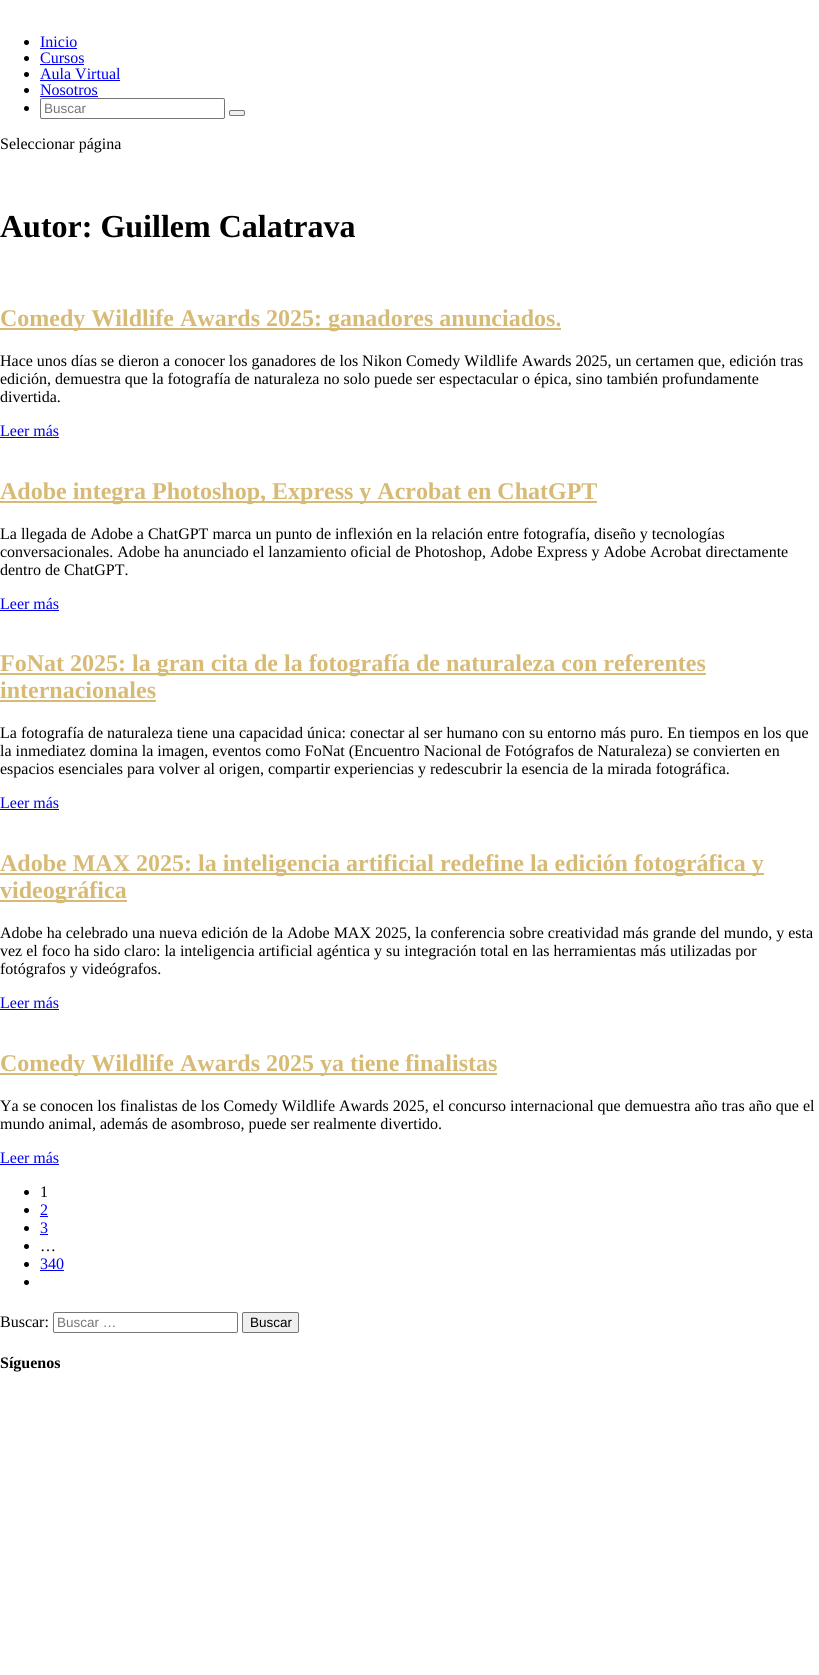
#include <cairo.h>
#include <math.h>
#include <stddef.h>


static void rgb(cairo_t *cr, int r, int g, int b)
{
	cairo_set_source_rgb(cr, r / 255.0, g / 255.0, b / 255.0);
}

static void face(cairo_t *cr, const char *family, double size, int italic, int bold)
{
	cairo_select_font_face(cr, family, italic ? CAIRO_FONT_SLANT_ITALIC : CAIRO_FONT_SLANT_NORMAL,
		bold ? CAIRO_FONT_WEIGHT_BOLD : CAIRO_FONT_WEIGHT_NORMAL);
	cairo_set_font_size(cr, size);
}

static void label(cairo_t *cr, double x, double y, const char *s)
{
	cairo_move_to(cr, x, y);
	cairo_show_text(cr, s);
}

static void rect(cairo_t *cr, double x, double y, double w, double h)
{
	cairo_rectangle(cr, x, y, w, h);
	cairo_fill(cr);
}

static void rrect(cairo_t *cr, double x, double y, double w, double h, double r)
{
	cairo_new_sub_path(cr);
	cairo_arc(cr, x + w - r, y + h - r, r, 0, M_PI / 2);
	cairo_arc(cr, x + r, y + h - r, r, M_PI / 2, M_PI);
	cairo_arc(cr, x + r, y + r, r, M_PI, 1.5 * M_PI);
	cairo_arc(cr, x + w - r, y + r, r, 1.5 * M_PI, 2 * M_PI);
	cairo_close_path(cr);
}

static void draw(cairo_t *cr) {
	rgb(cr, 255, 255, 255);
	cairo_paint(cr);
	rgb(cr, 0, 0, 0);
	cairo_arc(cr, 26.5, 42.5, 2.5, 0, 2 * M_PI);
	cairo_fill(cr);
	face(cr, "Liberation Serif", 16, 0, 0);
	rgb(cr, 0, 0, 238);
	label(cr, 40, 47, "Inicio");
	rect(cr, 40, 48, 37, 1);
	rgb(cr, 0, 0, 0);
	cairo_new_path(cr);
	cairo_arc(cr, 26.5, 58.5, 2.5, 0, 2 * M_PI);
	cairo_fill(cr);
	rgb(cr, 0, 0, 238);
	label(cr, 40, 63, "Cursos");
	rect(cr, 40, 64, 44, 1);
	rgb(cr, 0, 0, 0);
	cairo_new_path(cr);
	cairo_arc(cr, 26.5, 74.5, 2.5, 0, 2 * M_PI);
	cairo_fill(cr);
	rgb(cr, 0, 0, 238);
	label(cr, 40, 79, "Aula Virtual");
	rect(cr, 40, 80, 80, 1);
	rgb(cr, 0, 0, 0);
	cairo_new_path(cr);
	cairo_arc(cr, 26.5, 90.5, 2.5, 0, 2 * M_PI);
	cairo_fill(cr);
	rgb(cr, 0, 0, 238);
	label(cr, 40, 95, "Nosotros");
	rect(cr, 40, 96, 58, 1);
	rgb(cr, 0, 0, 0);
	cairo_new_path(cr);
	cairo_arc(cr, 26.5, 108.5, 2.5, 0, 2 * M_PI);
	cairo_fill(cr);
	rrect(cr, 40.5, 98.5, 184, 20, 1.5);
	rgb(cr, 118, 118, 118);
	cairo_set_line_width(cr, 1);
	cairo_stroke(cr);
	face(cr, "Liberation Sans", 13.5, 0, 0);
	rgb(cr, 117, 117, 117);
	label(cr, 44, 113, "Buscar");
	rgb(cr, 239, 239, 239);
	rrect(cr, 229.5, 110.5, 15, 5, 1.5);
	cairo_fill_preserve(cr);
	rgb(cr, 118, 118, 118);
	cairo_stroke(cr);
	face(cr, "Liberation Serif", 16, 0, 0);
	rgb(cr, 0, 0, 0);
	label(cr, 0, 149, "Seleccionar página");
	face(cr, "Liberation Serif", 32, 0, 1);
	label(cr, 0, 237, "Autor: Guillem Calatrava");
	rgb(cr, 215, 186, 118);
	rect(cr, 0, 328, 561, 2);
	face(cr, "Liberation Serif", 24, 0, 1);
	label(cr, 0, 326, "Comedy Wildlife Awards 2025: ganadores anunciados.");
	face(cr, "Liberation Serif", 16, 0, 0);
	rgb(cr, 0, 0, 0);
	label(cr, 0, 366, "Hace unos días se dieron a conocer los ganadores de los Nikon Comedy Wildlife Awards 2025, un certamen que, edición tras");
	label(cr, 0, 384, "edición, demuestra que la fotografía de naturaleza no solo puede ser espectacular o épica, sino también profundamente");
	label(cr, 0, 402, "divertida.");
	rgb(cr, 0, 0, 238);
	label(cr, 0, 436, "Leer más");
	rect(cr, 0, 437, 59, 1);
	rgb(cr, 215, 186, 118);
	rect(cr, 0, 501, 597, 2);
	face(cr, "Liberation Serif", 24, 0, 1);
	label(cr, 0, 499, "Adobe integra Photoshop, Express y Acrobat en ChatGPT");
	face(cr, "Liberation Serif", 16, 0, 0);
	rgb(cr, 0, 0, 0);
	label(cr, 0, 539, "La llegada de Adobe a ChatGPT marca un punto de inflexión en la relación entre fotografía, diseño y tecnologías");
	label(cr, 0, 557, "conversacionales. Adobe ha anunciado el lanzamiento oficial de Photoshop, Adobe Express y Adobe Acrobat directamente");
	label(cr, 0, 575, "dentro de ChatGPT.");
	rgb(cr, 0, 0, 238);
	label(cr, 0, 609, "Leer más");
	rect(cr, 0, 610, 59, 1);
	rgb(cr, 215, 186, 118);
	rect(cr, 0, 673, 706, 2);
	face(cr, "Liberation Serif", 24, 0, 1);
	label(cr, 0, 671, "FoNat 2025: la gran cita de la fotografía de naturaleza con referentes");
	label(cr, 0, 698, "internacionales");
	rect(cr, 0, 700, 156, 2);
	face(cr, "Liberation Serif", 16, 0, 0);
	rgb(cr, 0, 0, 0);
	label(cr, 0, 738, "La fotografía de naturaleza tiene una capacidad única: conectar al ser humano con su entorno más puro. En tiempos en los que");
	label(cr, 0, 756, "la inmediatez domina la imagen, eventos como FoNat (Encuentro Nacional de Fotógrafos de Naturaleza) se convierten en");
	label(cr, 0, 774, "espacios esenciales para volver al origen, compartir experiencias y redescubrir la esencia de la mirada fotográfica.");
	rgb(cr, 0, 0, 238);
	label(cr, 0, 808, "Leer más");
	rect(cr, 0, 809, 59, 1);
	rgb(cr, 215, 186, 118);
	rect(cr, 0, 873, 764, 2);
	face(cr, "Liberation Serif", 24, 0, 1);
	label(cr, 0, 871, "Adobe MAX 2025: la inteligencia artificial redefine la edición fotográfica y");
	rect(cr, 0, 900, 127, 2);
	label(cr, 0, 898, "videográfica");
	face(cr, "Liberation Serif", 16, 0, 0);
	rgb(cr, 0, 0, 0);
	label(cr, 0, 938, "Adobe ha celebrado una nueva edición de la Adobe MAX 2025, la conferencia sobre creatividad más grande del mundo, y esta");
	label(cr, 0, 956, "vez el foco ha sido claro: la inteligencia artificial agéntica y su integración total en las herramientas más utilizadas por");
	label(cr, 0, 974, "fotógrafos y videógrafos.");
	rgb(cr, 0, 0, 238);
	label(cr, 0, 1008, "Leer más");
	rect(cr, 0, 1009, 59, 1);
	rgb(cr, 215, 186, 118);
	rect(cr, 0, 1073, 497, 2);
	face(cr, "Liberation Serif", 24, 0, 1);
	label(cr, 0, 1071, "Comedy Wildlife Awards 2025 ya tiene finalistas");
	face(cr, "Liberation Serif", 16, 0, 0);
	rgb(cr, 0, 0, 0);
	label(cr, 0, 1111, "Ya se conocen los finalistas de los Comedy Wildlife Awards 2025, el concurso internacional que demuestra año tras año que el");
	label(cr, 0, 1129, "mundo animal, además de asombroso, puede ser realmente divertido.");
	rgb(cr, 0, 0, 238);
	label(cr, 0, 1163, "Leer más");
	rect(cr, 0, 1164, 59, 1);
	rgb(cr, 0, 0, 0);
	cairo_new_path(cr);
	cairo_arc(cr, 26.5, 1192.5, 2.5, 0, 2 * M_PI);
	cairo_fill(cr);
	label(cr, 40, 1197, "1");
	cairo_new_path(cr);
	cairo_arc(cr, 26.5, 1210.5, 2.5, 0, 2 * M_PI);
	cairo_fill(cr);
	rgb(cr, 0, 0, 238);
	label(cr, 40, 1215, "2");
	rect(cr, 40, 1216, 8, 1);
	rgb(cr, 0, 0, 0);
	cairo_new_path(cr);
	cairo_arc(cr, 26.5, 1228.5, 2.5, 0, 2 * M_PI);
	cairo_fill(cr);
	rgb(cr, 0, 0, 238);
	label(cr, 40, 1233, "3");
	rect(cr, 40, 1234, 8, 1);
	rgb(cr, 0, 0, 0);
	cairo_new_path(cr);
	cairo_arc(cr, 26.5, 1246.5, 2.5, 0, 2 * M_PI);
	cairo_fill(cr);
	label(cr, 40, 1251, "…");
	cairo_new_path(cr);
	cairo_arc(cr, 26.5, 1264.5, 2.5, 0, 2 * M_PI);
	cairo_fill(cr);
	rgb(cr, 0, 0, 238);
	label(cr, 40, 1269, "340");
	rect(cr, 40, 1270, 24, 1);
	rgb(cr, 0, 0, 0);
	cairo_new_path(cr);
	cairo_arc(cr, 26.5, 1282.5, 2.5, 0, 2 * M_PI);
	cairo_fill(cr);
	label(cr, 0, 1327, "Buscar:");
	rrect(cr, 53.5, 1312.5, 184, 20, 1.5);
	rgb(cr, 118, 118, 118);
	cairo_stroke(cr);
	face(cr, "Liberation Sans", 13.5, 0, 0);
	rgb(cr, 117, 117, 117);
	label(cr, 57, 1327, "Buscar …");
	rgb(cr, 239, 239, 239);
	rrect(cr, 242.5, 1312.5, 56, 20, 1.5);
	cairo_fill_preserve(cr);
	rgb(cr, 118, 118, 118);
	cairo_stroke(cr);
	rgb(cr, 0, 0, 0);
	label(cr, 250, 1327, "Buscar");
	face(cr, "Liberation Serif", 16, 0, 1);
	label(cr, 0, 1368, "Síguenos");
}

int main(void) {
	cairo_surface_t *surface = cairo_image_surface_create(CAIRO_FORMAT_RGB24, 819, 1675);
	cairo_t *cr = cairo_create(surface);
	cairo_font_options_t *options = cairo_font_options_create();
	cairo_font_options_set_hint_metrics(options, CAIRO_HINT_METRICS_OFF);
	cairo_font_options_set_hint_style(options, CAIRO_HINT_STYLE_NONE);
	cairo_set_font_options(cr, options);
	cairo_set_miter_limit(cr, 4);
	draw(cr);
	cairo_surface_write_to_png(surface, "render.png");
	cairo_font_options_destroy(options);
	cairo_destroy(cr);
	cairo_surface_destroy(surface);
	return 0;
}
